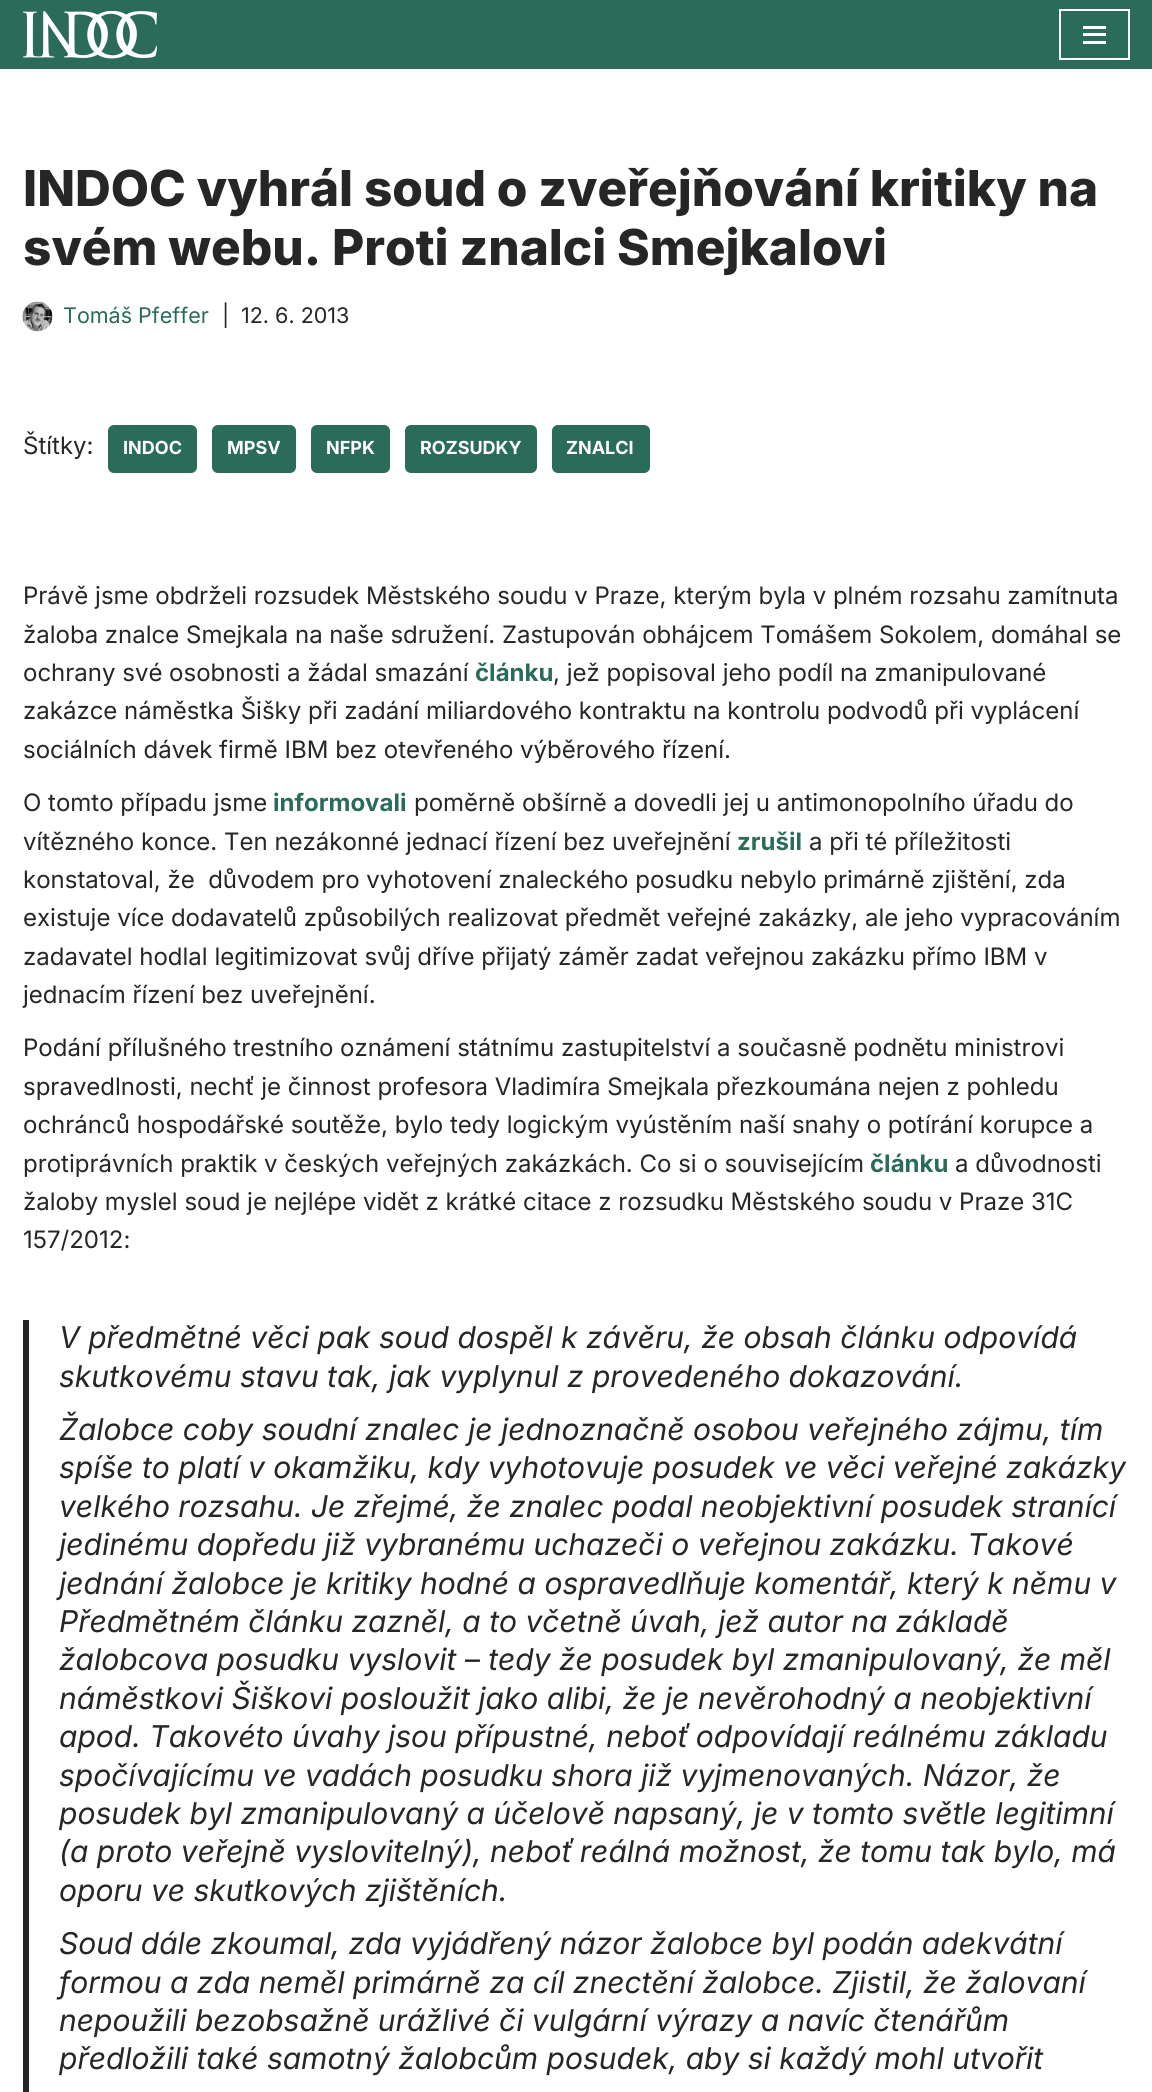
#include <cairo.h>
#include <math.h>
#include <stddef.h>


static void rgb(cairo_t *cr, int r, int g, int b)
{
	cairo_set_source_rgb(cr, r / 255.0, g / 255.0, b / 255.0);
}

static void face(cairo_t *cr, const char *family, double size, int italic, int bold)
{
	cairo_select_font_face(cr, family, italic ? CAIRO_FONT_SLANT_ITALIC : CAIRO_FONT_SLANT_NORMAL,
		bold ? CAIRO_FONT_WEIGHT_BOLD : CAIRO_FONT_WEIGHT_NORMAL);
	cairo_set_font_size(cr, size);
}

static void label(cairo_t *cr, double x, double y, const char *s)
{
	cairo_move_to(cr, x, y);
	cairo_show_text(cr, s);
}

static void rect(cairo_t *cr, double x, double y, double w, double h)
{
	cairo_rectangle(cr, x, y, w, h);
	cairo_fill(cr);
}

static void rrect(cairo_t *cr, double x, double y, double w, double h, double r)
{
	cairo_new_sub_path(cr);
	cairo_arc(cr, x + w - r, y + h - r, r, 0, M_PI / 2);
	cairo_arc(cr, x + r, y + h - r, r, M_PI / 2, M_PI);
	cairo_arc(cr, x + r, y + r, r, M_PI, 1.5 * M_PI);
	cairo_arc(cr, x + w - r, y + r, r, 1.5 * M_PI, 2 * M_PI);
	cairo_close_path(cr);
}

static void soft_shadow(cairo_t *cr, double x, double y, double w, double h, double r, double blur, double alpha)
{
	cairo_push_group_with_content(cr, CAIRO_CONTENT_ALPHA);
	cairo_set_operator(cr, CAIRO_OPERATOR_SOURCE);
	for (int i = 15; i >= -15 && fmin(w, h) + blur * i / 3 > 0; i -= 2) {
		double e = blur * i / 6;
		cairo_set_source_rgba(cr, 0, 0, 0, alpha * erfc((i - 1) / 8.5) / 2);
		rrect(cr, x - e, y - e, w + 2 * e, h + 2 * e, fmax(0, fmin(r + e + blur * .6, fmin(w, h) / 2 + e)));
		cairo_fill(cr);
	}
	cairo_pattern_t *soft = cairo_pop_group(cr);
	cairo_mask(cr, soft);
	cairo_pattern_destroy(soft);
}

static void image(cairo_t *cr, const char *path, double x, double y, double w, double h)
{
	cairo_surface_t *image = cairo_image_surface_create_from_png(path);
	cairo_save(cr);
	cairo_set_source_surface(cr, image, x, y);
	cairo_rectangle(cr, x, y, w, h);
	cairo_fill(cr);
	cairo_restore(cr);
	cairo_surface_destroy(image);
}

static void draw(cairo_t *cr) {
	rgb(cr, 255, 255, 255);
	cairo_paint(cr);
	rgb(cr, 0, 0, 0);
	soft_shadow(cr, 0, -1, 1152, 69, 0, 2, 0.1);
	rgb(cr, 42, 107, 89);
	rect(cr, 0, 0, 1152, 69);
	image(cr, "image0.png", 23, 11, 135, 48);
	cairo_rectangle(cr, 1060, 10, 69, 49);
	rgb(cr, 255, 255, 255);
	cairo_stroke(cr);
	rect(cr, 1083, 26, 23, 3);
	rect(cr, 1083, 33, 23, 3);
	rect(cr, 1083, 41, 23, 3);
	face(cr, "Inter ExtraBold", 49.5, 0, 0);
	rgb(cr, 39, 38, 38);
	label(cr, 23, 206, "INDOC vyhrál soud o zveřejňování kritiky na");
	label(cr, 23, 265, "svém webu. Proti znalci Smejkalovi");
	image(cr, "image1.png", 22, 301, 31, 31);
	face(cr, "Inter", 21.5, 0, 0);
	rgb(cr, 42, 107, 89);
	label(cr, 63, 323, "Tomáš Pfeffer");
	rgb(cr, 39, 38, 38);
	label(cr, 222, 323, "|");
	label(cr, 241, 323, "12. 6. 2013");
	face(cr, "Inter", 24, 0, 0);
	label(cr, 23, 454, "Štítky:");
	rgb(cr, 42, 107, 89);
	rrect(cr, 108, 425, 89, 48, 6);
	cairo_fill(cr);
	face(cr, "Inter", 18, 0, 1);
	rgb(cr, 255, 255, 255);
	label(cr, 123, 454, "INDOC");
	rgb(cr, 42, 107, 89);
	rrect(cr, 212, 425, 84, 48, 6);
	cairo_fill(cr);
	rgb(cr, 255, 255, 255);
	label(cr, 227, 454, "MPSV");
	rgb(cr, 42, 107, 89);
	rrect(cr, 311, 425, 79, 48, 6);
	cairo_fill(cr);
	rgb(cr, 255, 255, 255);
	label(cr, 326, 454, "NFPK");
	rgb(cr, 42, 107, 89);
	rrect(cr, 405, 425, 132, 48, 6);
	cairo_fill(cr);
	rgb(cr, 255, 255, 255);
	label(cr, 420, 454, "ROZSUDKY");
	rgb(cr, 42, 107, 89);
	rrect(cr, 552, 425, 98, 48, 6);
	cairo_fill(cr);
	rgb(cr, 255, 255, 255);
	label(cr, 566, 454, "ZNALCI");
	face(cr, "Inter", 24, 0, 0);
	rgb(cr, 39, 38, 38);
	label(cr, 23, 604, "Právě jsme obdrželi rozsudek Městského soudu v Praze, kterým byla v plném rozsahu zamítnuta");
	label(cr, 23, 643, "žaloba znalce Smejkala na naše sdružení. Zastupován obhájcem Tomášem Sokolem, domáhal se");
	label(cr, 23, 681, "ochrany své osobnosti a žádal smazání");
	face(cr, "Inter", 24, 0, 1);
	rgb(cr, 42, 107, 89);
	label(cr, 475, 681, "článku");
	face(cr, "Inter", 24, 0, 0);
	rgb(cr, 39, 38, 38);
	label(cr, 553, 681, ", jež popisoval jeho podíl na zmanipulované");
	label(cr, 23, 719, "zakázce náměstka Šišky při zadání miliardového kontraktu na kontrolu podvodů při vyplácení");
	label(cr, 23, 758, "sociálních dávek firmě IBM bez otevřeného výběrového řízení.");
	label(cr, 23, 811, "O tomto případu jsme");
	face(cr, "Inter", 24, 0, 1);
	rgb(cr, 42, 107, 89);
	label(cr, 273, 811, "informovali");
	face(cr, "Inter", 24, 0, 0);
	rgb(cr, 39, 38, 38);
	label(cr, 414, 811, "poměrně obšírně a dovedli jej u antimonopolního úřadu do");
	label(cr, 23, 850, "vítězného konce. Ten nezákonné jednací řízení bez uveřejnění");
	face(cr, "Inter", 24, 0, 1);
	rgb(cr, 42, 107, 89);
	label(cr, 737, 850, "zrušil");
	face(cr, "Inter", 24, 0, 0);
	rgb(cr, 39, 38, 38);
	label(cr, 809, 850, "a při té příležitosti");
	label(cr, 23, 888, "konstatoval, že  důvodem pro vyhotovení znaleckého posudku nebylo primárně zjištění, zda");
	label(cr, 23, 926, "existuje více dodavatelů způsobilých realizovat předmět veřejné zakázky, ale jeho vypracováním");
	label(cr, 23, 965, "zadavatel hodlal legitimizovat svůj dříve přijatý záměr zadat veřejnou zakázku přímo IBM v");
	label(cr, 23, 1003, "jednacím řízení bez uveřejnění.");
	label(cr, 23, 1056, "Podání přílušného trestního oznámení státnímu zastupitelství a současně podnětu ministrovi");
	label(cr, 23, 1095, "spravedlnosti, nechť je činnost profesora Vladimíra Smejkala přezkoumána nejen z pohledu");
	label(cr, 23, 1133, "ochránců hospodářské soutěže, bylo tedy logickým vyústěním naší snahy o potírání korupce a");
	label(cr, 23, 1172, "protiprávních praktik v českých veřejných zakázkách. Co si o souvisejícím");
	face(cr, "Inter", 24, 0, 1);
	rgb(cr, 42, 107, 89);
	label(cr, 870, 1172, "článku");
	face(cr, "Inter", 24, 0, 0);
	rgb(cr, 39, 38, 38);
	label(cr, 955, 1172, "a důvodnosti");
	label(cr, 23, 1210, "žaloby myslel soud je nejlépe vidět z krátké citace z rozsudku Městského soudu v Praze 31C");
	label(cr, 23, 1248, "157/2012:");
	rect(cr, 23, 1320, 6, 772);
	face(cr, "Inter", 30, 1, 0);
	label(cr, 59, 1348, "V předmětné věci pak soud dospěl k závěru, že obsah článku odpovídá");
	label(cr, 59, 1387, "skutkovému stavu tak, jak vyplynul z provedeného dokazování.");
	label(cr, 59, 1440, "Žalobce coby soudní znalec je jednoznačně osobou veřejného zájmu, tím");
	label(cr, 59, 1478, "spíše to platí v okamžiku, kdy vyhotovuje posudek ve věci veřejné zakázky");
	label(cr, 59, 1517, "velkého rozsahu. Je zřejmé, že znalec podal neobjektivní posudek stranící");
	label(cr, 59, 1555, "jedinému dopředu již vybranému uchazeči o veřejnou zakázku. Takové");
	label(cr, 59, 1594, "jednání žalobce je kritiky hodné a ospravedlňuje komentář, který k němu v");
	label(cr, 59, 1632, "Předmětném článku zazněl, a to včetně úvah, jež autor na základě");
	label(cr, 59, 1670, "žalobcova posudku vyslovit – tedy že posudek byl zmanipulovaný, že měl");
	label(cr, 59, 1709, "náměstkovi Šiškovi posloužit jako alibi, že je nevěrohodný a neobjektivní");
	label(cr, 59, 1747, "apod. Takovéto úvahy jsou přípustné, neboť odpovídají reálnému základu");
	label(cr, 59, 1786, "spočívajícímu ve vadách posudku shora již vyjmenovaných. Názor, že");
	label(cr, 59, 1824, "posudek byl zmanipulovaný a účelově napsaný, je v tomto světle legitimní");
	label(cr, 59, 1862, "(a proto veřejně vyslovitelný), neboť reálná možnost, že tomu tak bylo, má");
	label(cr, 59, 1901, "oporu ve skutkových zjištěních.");
	label(cr, 59, 1954, "Soud dále zkoumal, zda vyjádřený názor žalobce byl podán adekvátní");
	label(cr, 59, 1993, "formou a zda neměl primárně za cíl znectění žalobce. Zjistil, že žalovaní");
	label(cr, 59, 2031, "nepoužili bezobsažně urážlivé či vulgární výrazy a navíc čtenářům");
	label(cr, 59, 2069, "předložili také samotný žalobcům posudek, aby si každý mohl utvořit");
}

int main(void) {
	cairo_surface_t *surface = cairo_image_surface_create(CAIRO_FORMAT_RGB24, 1152, 2092);
	cairo_t *cr = cairo_create(surface);
	cairo_font_options_t *options = cairo_font_options_create();
	cairo_font_options_set_hint_metrics(options, CAIRO_HINT_METRICS_OFF);
	cairo_font_options_set_hint_style(options, CAIRO_HINT_STYLE_NONE);
	cairo_set_font_options(cr, options);
	cairo_set_miter_limit(cr, 4);
	draw(cr);
	cairo_surface_write_to_png(surface, "render.png");
	cairo_font_options_destroy(options);
	cairo_destroy(cr);
	cairo_surface_destroy(surface);
	return 0;
}
